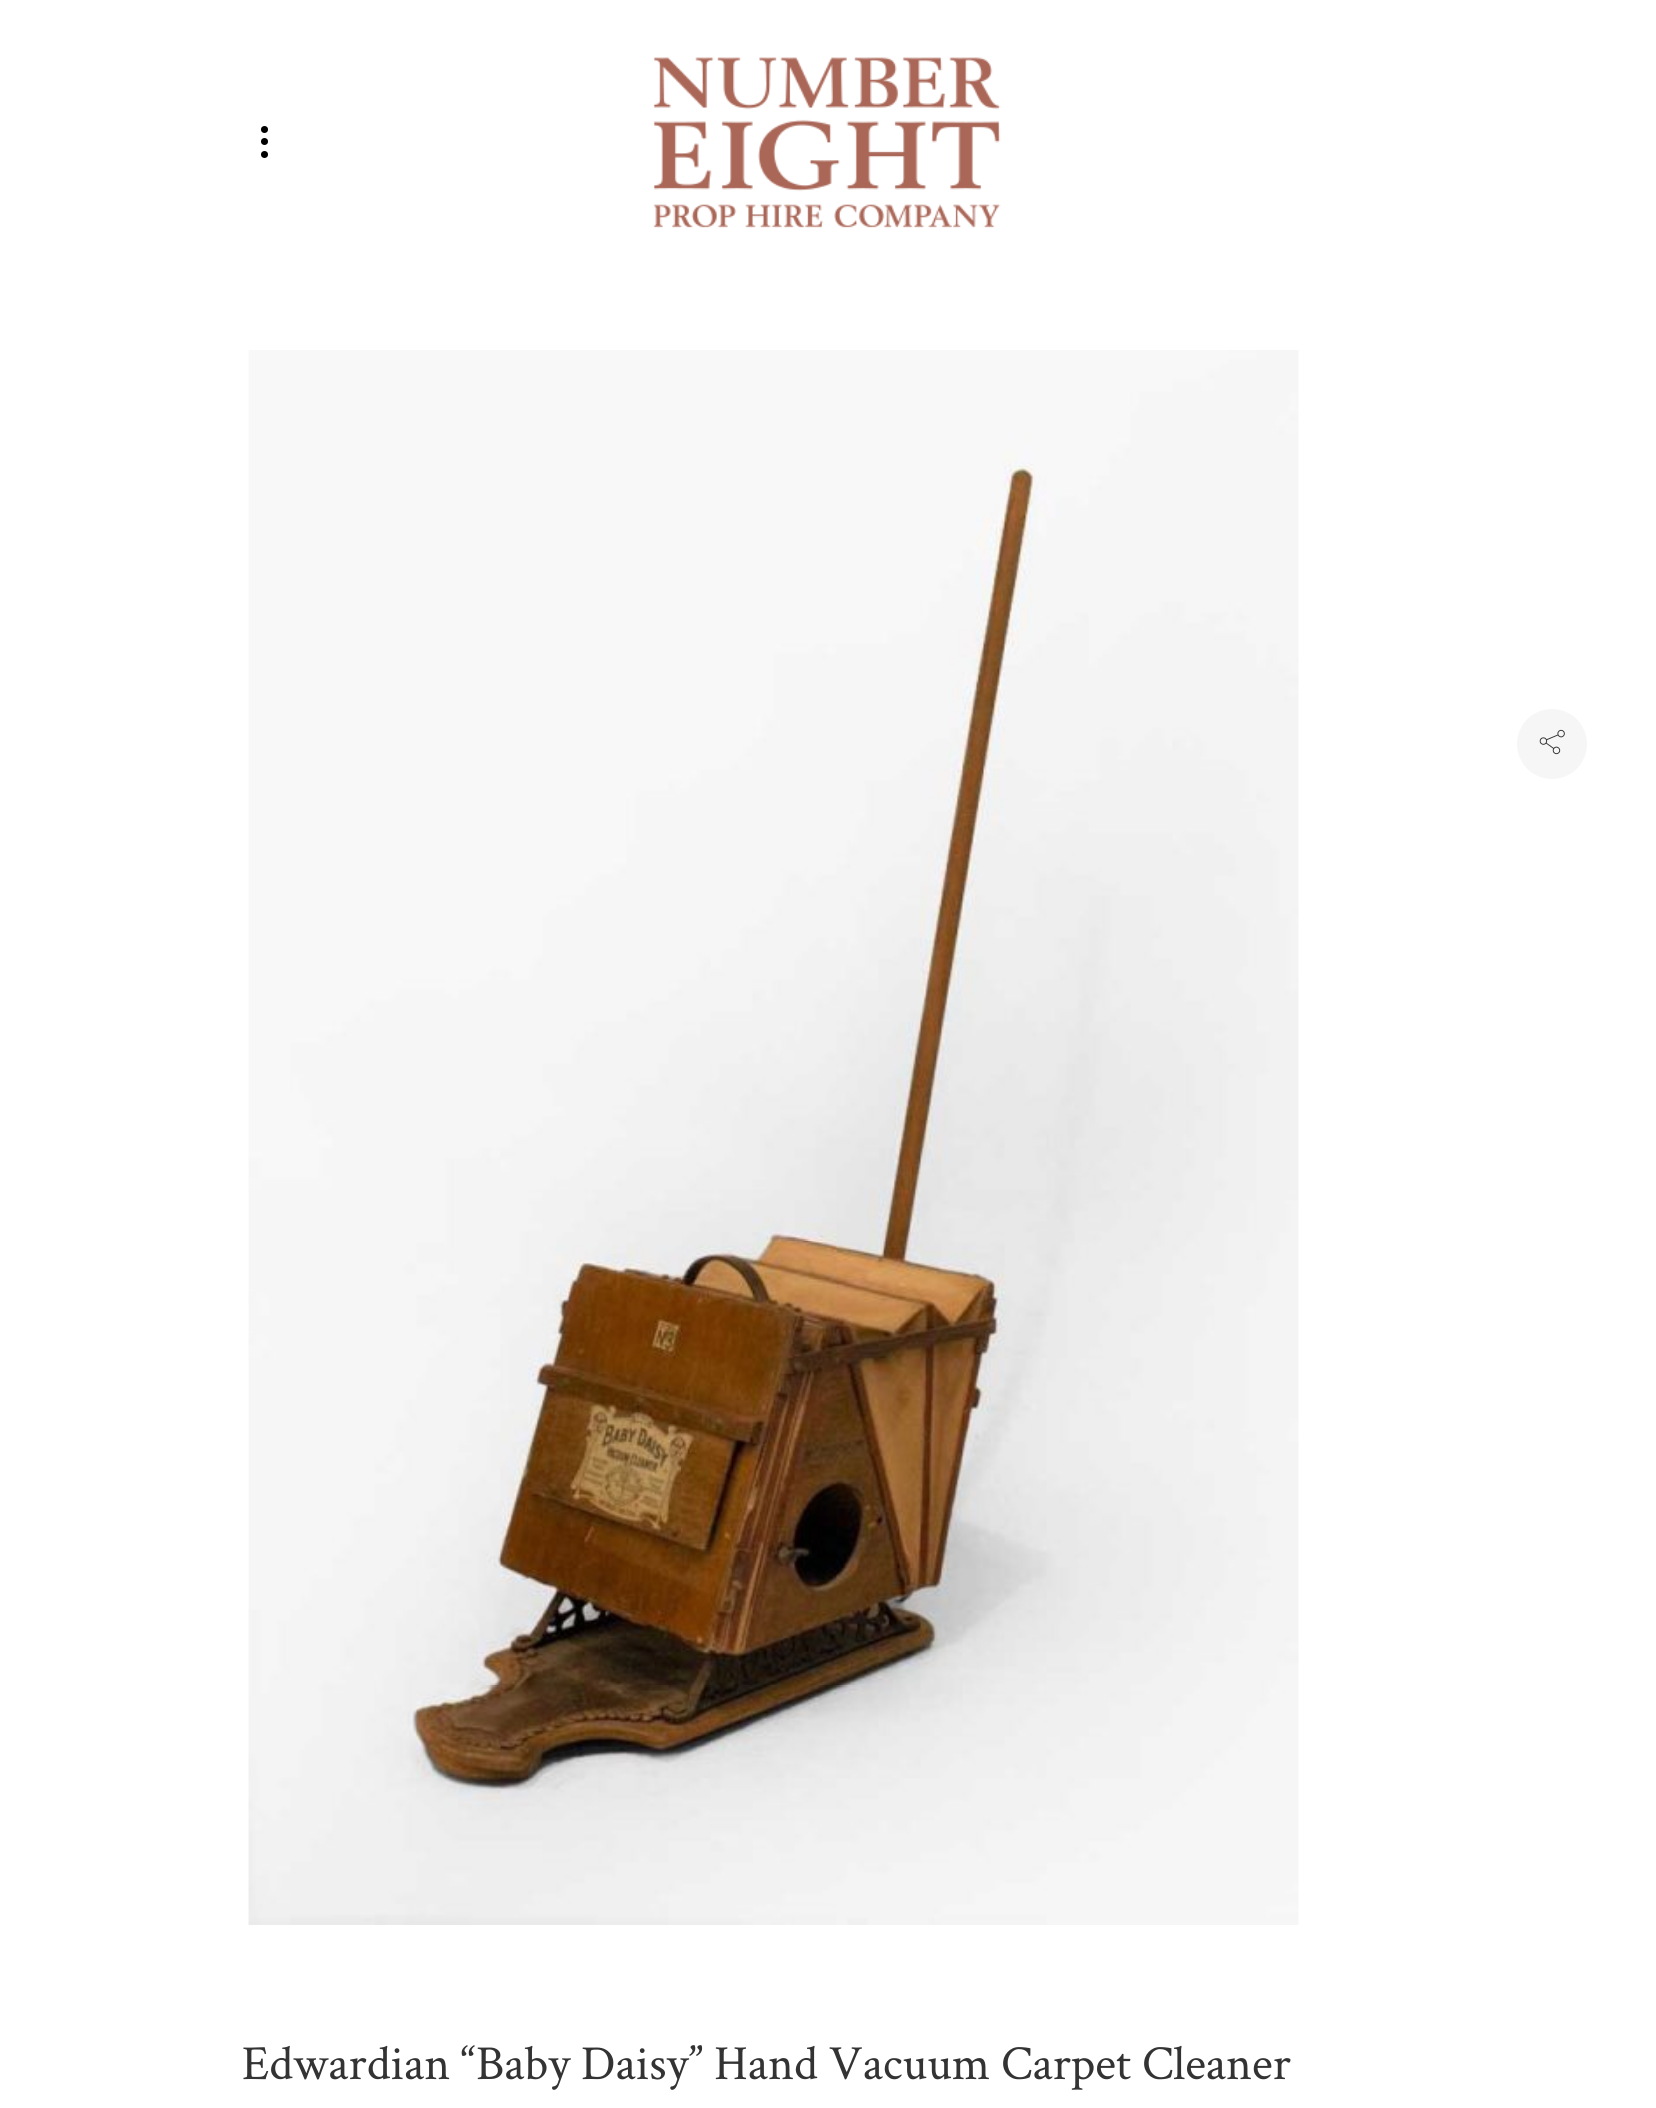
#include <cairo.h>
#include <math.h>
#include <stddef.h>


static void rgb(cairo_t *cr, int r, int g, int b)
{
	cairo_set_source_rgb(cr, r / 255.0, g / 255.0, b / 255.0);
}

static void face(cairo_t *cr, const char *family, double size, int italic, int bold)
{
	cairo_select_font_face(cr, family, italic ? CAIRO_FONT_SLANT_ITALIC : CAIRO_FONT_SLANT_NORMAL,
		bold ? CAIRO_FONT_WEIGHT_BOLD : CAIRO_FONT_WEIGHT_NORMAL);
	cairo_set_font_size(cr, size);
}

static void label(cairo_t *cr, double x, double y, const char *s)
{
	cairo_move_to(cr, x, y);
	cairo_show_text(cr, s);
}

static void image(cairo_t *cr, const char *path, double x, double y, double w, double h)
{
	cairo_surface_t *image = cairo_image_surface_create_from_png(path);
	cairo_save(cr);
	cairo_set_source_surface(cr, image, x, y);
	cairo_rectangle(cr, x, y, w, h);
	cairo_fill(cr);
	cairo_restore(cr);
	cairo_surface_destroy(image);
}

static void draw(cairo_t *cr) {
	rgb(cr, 255, 255, 255);
	cairo_paint(cr);
	rgb(cr, 0, 0, 0);
	cairo_arc(cr, 264.5, 141.5, 3.5, 0, 2 * M_PI);
	cairo_fill(cr);
	cairo_arc(cr, 264.5, 129.5, 3.5, 0, 2 * M_PI);
	cairo_fill(cr);
	cairo_arc(cr, 264.5, 154.5, 3.5, 0, 2 * M_PI);
	cairo_fill(cr);
	image(cr, "image0.png", 653, 57, 348, 171);
	image(cr, "image1.png", 248, 350, 1051, 1575);
	rgb(cr, 246, 246, 246);
	cairo_arc(cr, 1552, 744, 35, 0, 2 * M_PI);
	cairo_fill(cr);
	image(cr, "image2.png", 1539, 729, 26, 26);
	face(cr, "Crimson Text", 49, 0, 0);
	rgb(cr, 51, 51, 51);
	label(cr, 242, 2079, "Edwardian “Baby Daisy” Hand Vacuum Carpet Cleaner");
}

int main(void) {
	cairo_surface_t *surface = cairo_image_surface_create(CAIRO_FORMAT_RGB24, 1656, 2108);
	cairo_t *cr = cairo_create(surface);
	cairo_font_options_t *options = cairo_font_options_create();
	cairo_font_options_set_hint_metrics(options, CAIRO_HINT_METRICS_OFF);
	cairo_font_options_set_hint_style(options, CAIRO_HINT_STYLE_NONE);
	cairo_set_font_options(cr, options);
	cairo_set_miter_limit(cr, 4);
	draw(cr);
	cairo_surface_write_to_png(surface, "render.png");
	cairo_font_options_destroy(options);
	cairo_destroy(cr);
	cairo_surface_destroy(surface);
	return 0;
}
